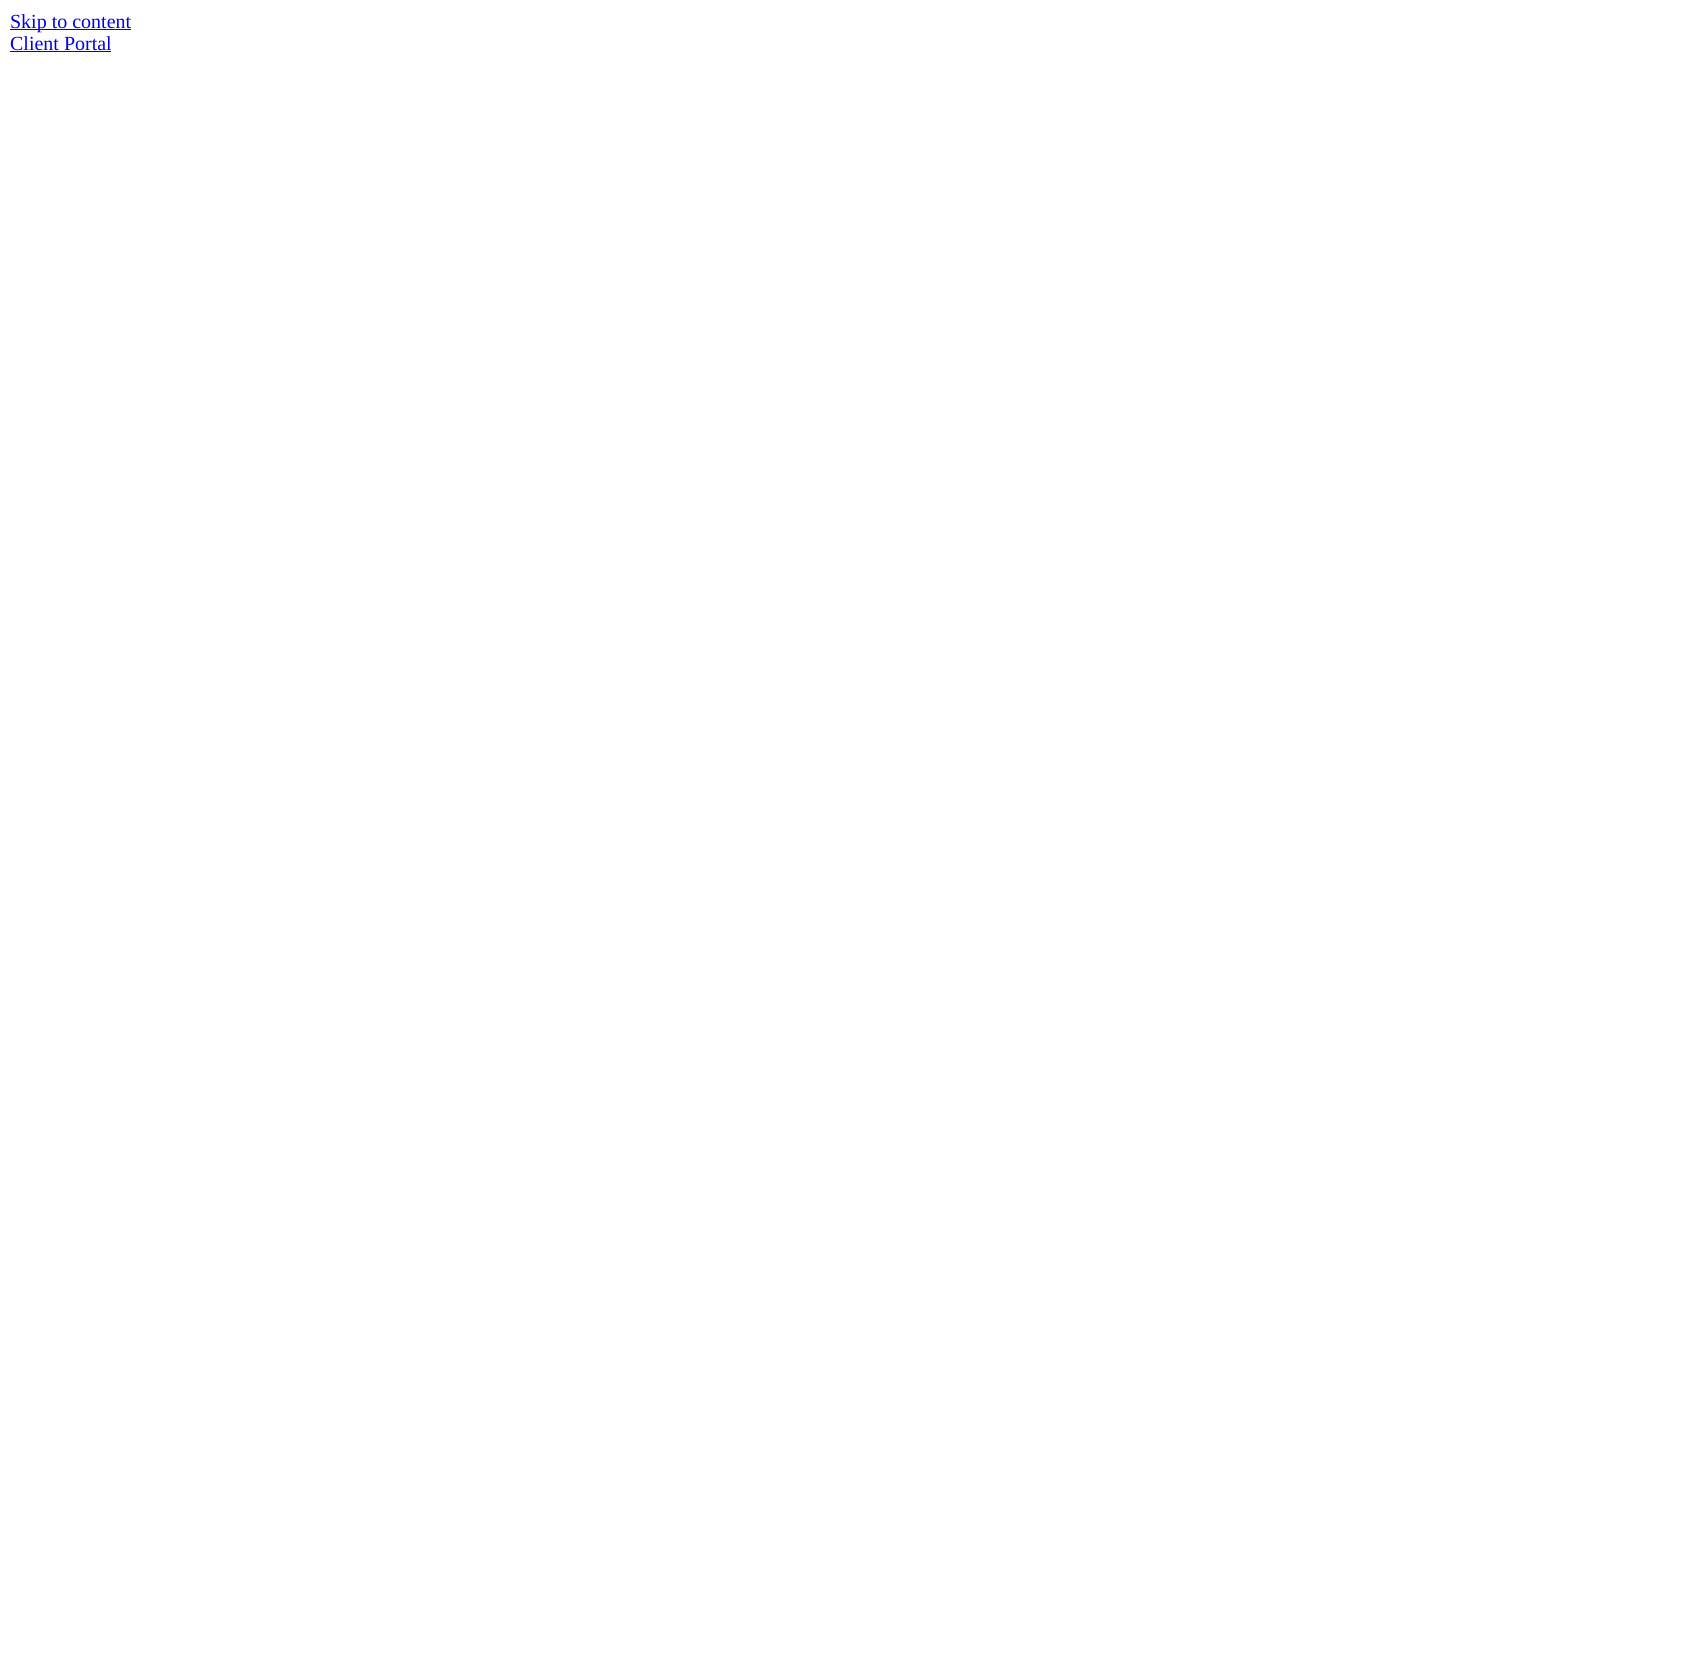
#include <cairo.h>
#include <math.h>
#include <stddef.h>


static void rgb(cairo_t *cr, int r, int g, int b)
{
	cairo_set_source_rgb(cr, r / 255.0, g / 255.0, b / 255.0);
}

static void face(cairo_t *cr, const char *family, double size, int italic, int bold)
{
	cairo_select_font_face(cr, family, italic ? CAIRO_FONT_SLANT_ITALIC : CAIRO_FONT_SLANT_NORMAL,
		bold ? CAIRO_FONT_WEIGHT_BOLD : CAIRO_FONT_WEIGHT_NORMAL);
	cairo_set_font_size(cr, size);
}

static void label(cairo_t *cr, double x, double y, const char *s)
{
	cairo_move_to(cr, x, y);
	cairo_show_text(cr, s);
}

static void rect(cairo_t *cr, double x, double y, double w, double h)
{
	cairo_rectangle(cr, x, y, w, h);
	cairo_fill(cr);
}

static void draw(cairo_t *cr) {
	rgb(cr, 255, 255, 255);
	cairo_paint(cr);
	rgb(cr, 0, 0, 238);
	rect(cr, 10, 29, 121, 1);
	face(cr, "Liberation Serif", 20, 0, 0);
	label(cr, 10, 28, "Skip to content");
	label(cr, 10, 50, "Client Portal");
	rect(cr, 10, 51, 101, 1);
}

int main(void) {
	cairo_surface_t *surface = cairo_image_surface_create(CAIRO_FORMAT_RGB24, 1688, 1671);
	cairo_t *cr = cairo_create(surface);
	cairo_font_options_t *options = cairo_font_options_create();
	cairo_font_options_set_hint_metrics(options, CAIRO_HINT_METRICS_OFF);
	cairo_font_options_set_hint_style(options, CAIRO_HINT_STYLE_NONE);
	cairo_set_font_options(cr, options);
	cairo_set_miter_limit(cr, 4);
	draw(cr);
	cairo_surface_write_to_png(surface, "render.png");
	cairo_font_options_destroy(options);
	cairo_destroy(cr);
	cairo_surface_destroy(surface);
	return 0;
}
